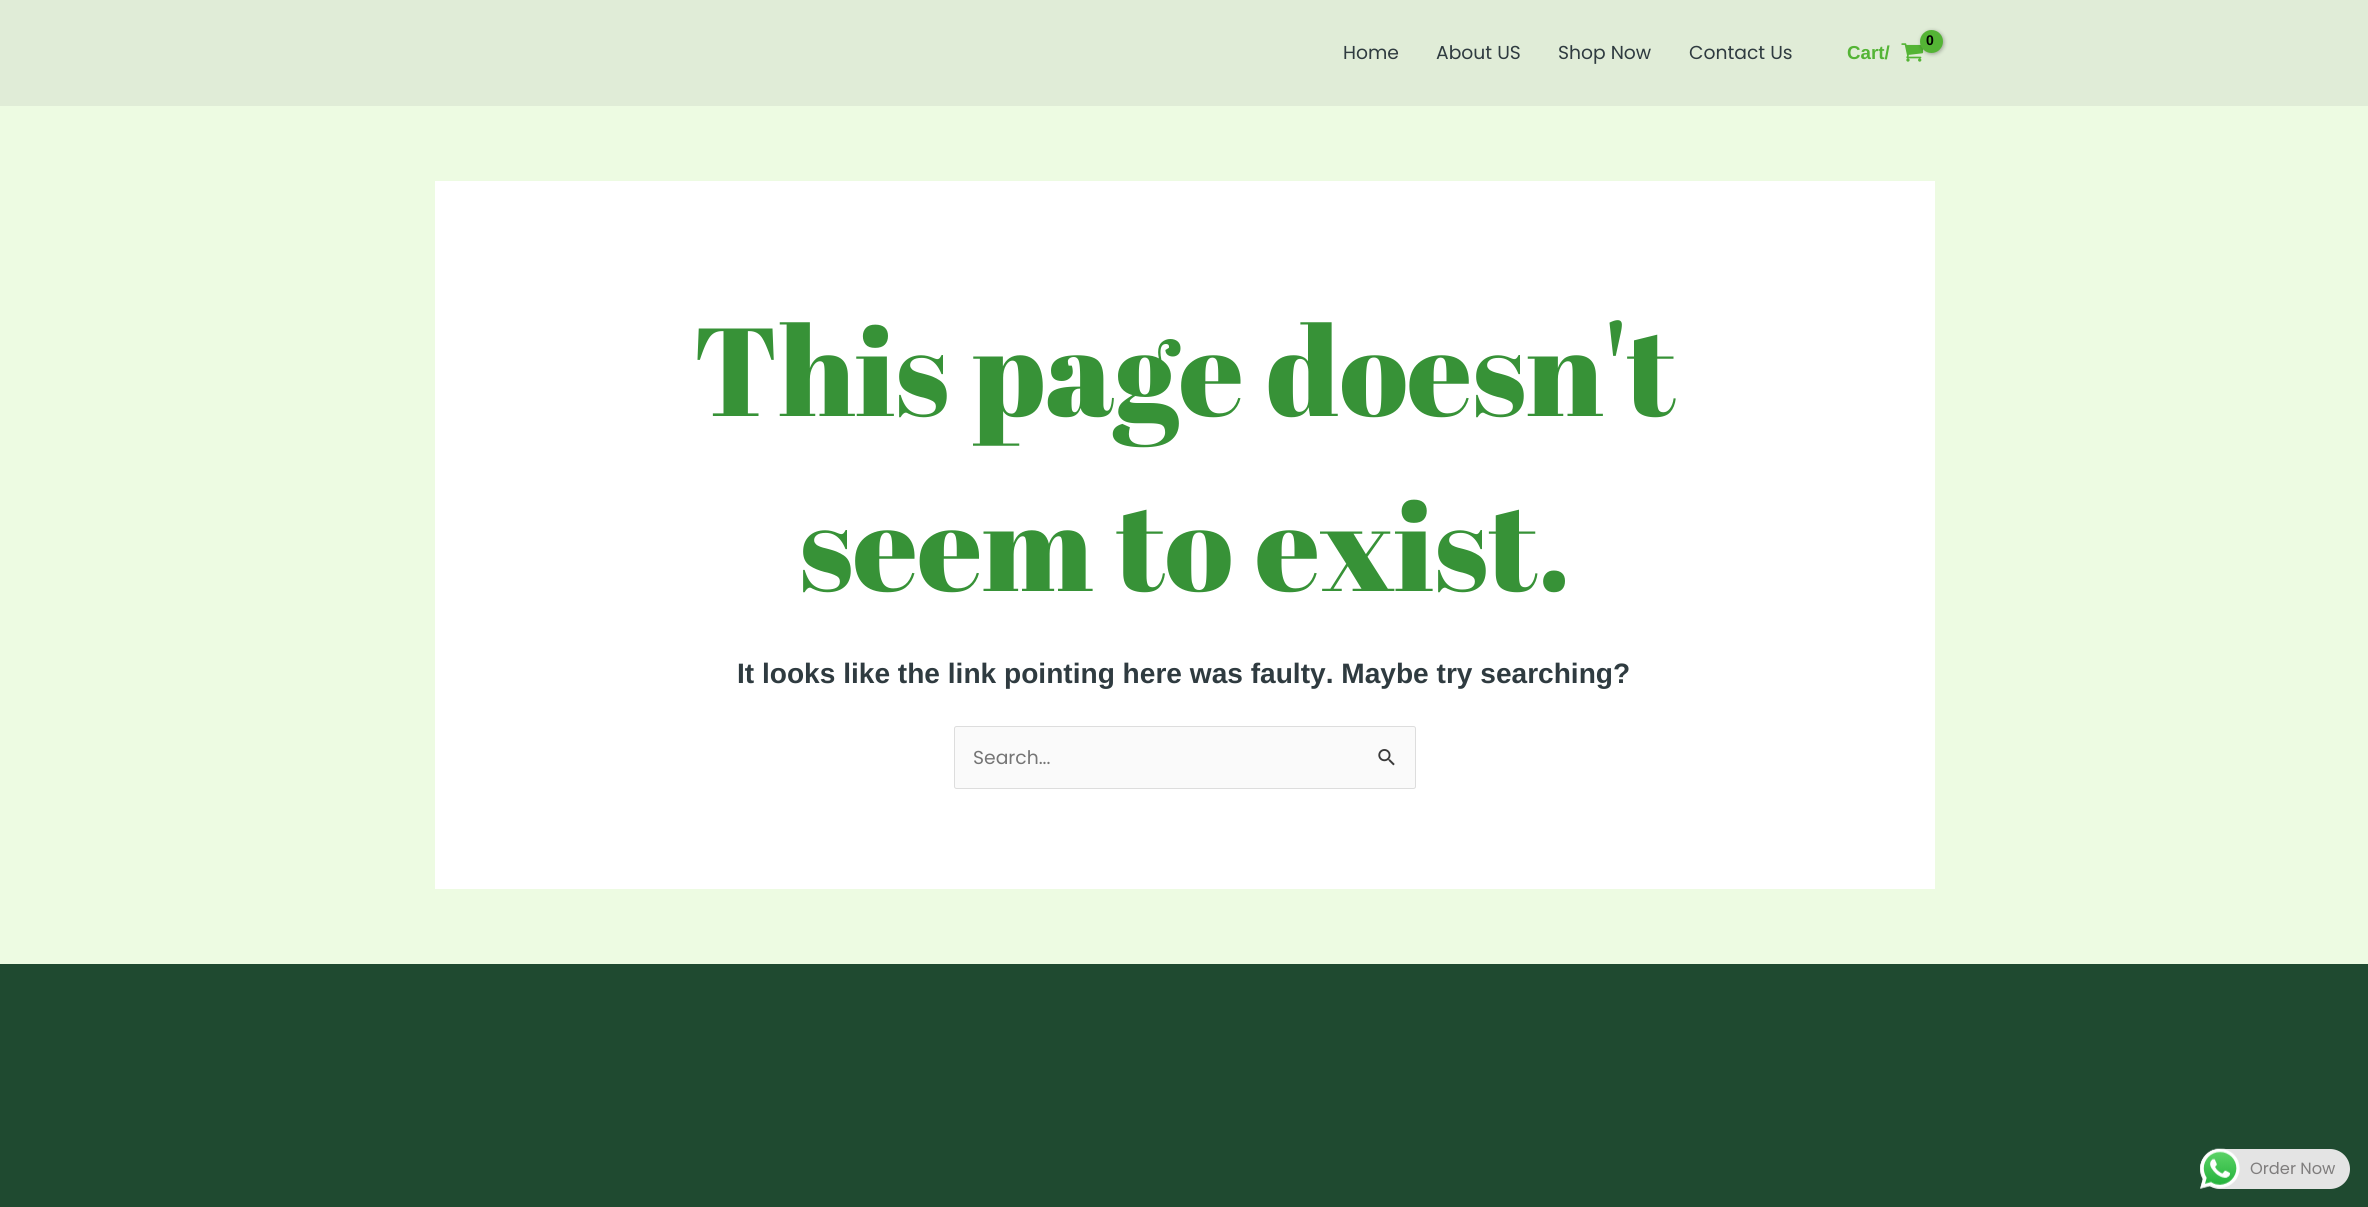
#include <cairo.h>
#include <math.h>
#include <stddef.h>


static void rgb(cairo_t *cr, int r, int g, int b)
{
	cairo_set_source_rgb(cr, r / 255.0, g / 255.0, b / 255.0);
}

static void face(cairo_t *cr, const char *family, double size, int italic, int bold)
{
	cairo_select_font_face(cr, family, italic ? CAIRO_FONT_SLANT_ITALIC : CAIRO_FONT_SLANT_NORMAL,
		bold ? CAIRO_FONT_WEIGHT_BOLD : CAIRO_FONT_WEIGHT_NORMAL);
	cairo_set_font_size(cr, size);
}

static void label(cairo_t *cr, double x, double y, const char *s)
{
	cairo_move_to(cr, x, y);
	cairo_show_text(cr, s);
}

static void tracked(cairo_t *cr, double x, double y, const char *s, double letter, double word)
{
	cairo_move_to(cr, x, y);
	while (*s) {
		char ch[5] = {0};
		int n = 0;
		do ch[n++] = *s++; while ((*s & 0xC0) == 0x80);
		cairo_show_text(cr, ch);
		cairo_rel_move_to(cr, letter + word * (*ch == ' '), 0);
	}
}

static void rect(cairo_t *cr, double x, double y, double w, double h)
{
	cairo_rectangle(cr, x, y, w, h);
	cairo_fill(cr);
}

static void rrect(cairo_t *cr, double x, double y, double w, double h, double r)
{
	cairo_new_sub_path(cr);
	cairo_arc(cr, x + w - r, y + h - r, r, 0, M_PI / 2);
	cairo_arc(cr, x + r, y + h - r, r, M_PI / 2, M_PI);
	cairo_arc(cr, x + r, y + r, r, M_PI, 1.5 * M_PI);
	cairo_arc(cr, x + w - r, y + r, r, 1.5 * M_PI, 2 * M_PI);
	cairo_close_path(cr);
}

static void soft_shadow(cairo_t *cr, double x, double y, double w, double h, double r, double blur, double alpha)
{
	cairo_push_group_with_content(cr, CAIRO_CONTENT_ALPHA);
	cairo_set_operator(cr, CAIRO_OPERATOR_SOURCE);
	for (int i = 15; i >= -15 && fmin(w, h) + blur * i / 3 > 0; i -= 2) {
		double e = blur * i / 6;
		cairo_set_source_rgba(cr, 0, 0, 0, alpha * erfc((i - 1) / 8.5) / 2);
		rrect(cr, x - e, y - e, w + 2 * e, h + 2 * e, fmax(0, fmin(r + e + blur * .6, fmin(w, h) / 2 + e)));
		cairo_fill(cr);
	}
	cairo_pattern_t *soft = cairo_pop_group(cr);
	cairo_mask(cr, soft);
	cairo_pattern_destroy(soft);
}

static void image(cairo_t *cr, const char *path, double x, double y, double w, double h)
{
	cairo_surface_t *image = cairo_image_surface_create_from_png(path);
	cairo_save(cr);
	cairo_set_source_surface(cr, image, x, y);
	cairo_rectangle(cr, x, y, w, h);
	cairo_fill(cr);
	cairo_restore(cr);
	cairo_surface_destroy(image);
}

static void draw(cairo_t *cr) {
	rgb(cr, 237, 251, 226);
	cairo_paint(cr);
	rgb(cr, 224, 236, 215);
	rect(cr, 0, 0, 2368, 106);
	face(cr, "Poppins", 18.75, 0, 0);
	rgb(cr, 47, 59, 64);
	label(cr, 1343, 59, "Home");
	label(cr, 1436, 59, "About US");
	label(cr, 1558, 59, "Shop Now");
	label(cr, 1689, 59, "Contact Us");
	image(cr, "image0.png", 1901, 43, 23, 19);
	rgb(cr, 0, 0, 0);
	soft_shadow(cr, 1921, 31, 23, 23, 11.5, 2, 0.3);
	rgb(cr, 84, 180, 53);
	cairo_arc(cr, 1931.5, 41.5, 11.5, 0, 2 * M_PI);
	cairo_fill(cr);
	face(cr, "Liberation Sans", 14, 0, 1);
	rgb(cr, 0, 0, 0);
	tracked(cr, 1926, 45, "0", -1, 0);
	face(cr, "Liberation Sans", 18.75, 0, 1);
	rgb(cr, 84, 180, 53);
	label(cr, 1847, 59, "Cart/");
	rgb(cr, 255, 255, 255);
	rect(cr, 435, 181, 1500, 708);
	face(cr, "Abril Fatface", 125, 0, 0);
	rgb(cr, 55, 146, 55);
	label(cr, 693, 416, "This page doesn't");
	label(cr, 799, 591, "seem to exist.");
	face(cr, "Liberation Sans", 28.1, 0, 1);
	rgb(cr, 47, 59, 64);
	label(cr, 737, 683, "It looks like the link pointing here was faulty. Maybe try searching?");
	rgb(cr, 250, 250, 250);
	rrect(cr, 954.5, 726.5, 461, 62, 2);
	cairo_fill_preserve(cr);
	rgb(cr, 221, 221, 221);
	cairo_set_line_width(cr, 1);
	cairo_stroke(cr);
	face(cr, "Poppins", 18.75, 0, 0);
	rgb(cr, 117, 117, 117);
	label(cr, 973, 764, "Search...");
	image(cr, "image1.png", 1378, 749, 17, 17);
	rgb(cr, 31, 74, 48);
	rect(cr, 0, 964, 2368, 243);
	rgb(cr, 228, 228, 228);
	rrect(cr, 2200, 1149, 150, 40, 20);
	cairo_fill(cr);
	image(cr, "image2.png", 2200, 1148, 40, 41);
	face(cr, "Poppins", 16.25, 0, 0);
	rgb(cr, 127, 125, 125);
	label(cr, 2250, 1174, "Order Now");
}

int main(void) {
	cairo_surface_t *surface = cairo_image_surface_create(CAIRO_FORMAT_RGB24, 2368, 1207);
	cairo_t *cr = cairo_create(surface);
	cairo_font_options_t *options = cairo_font_options_create();
	cairo_font_options_set_hint_metrics(options, CAIRO_HINT_METRICS_OFF);
	cairo_font_options_set_hint_style(options, CAIRO_HINT_STYLE_NONE);
	cairo_set_font_options(cr, options);
	cairo_set_miter_limit(cr, 4);
	draw(cr);
	cairo_surface_write_to_png(surface, "render.png");
	cairo_font_options_destroy(options);
	cairo_destroy(cr);
	cairo_surface_destroy(surface);
	return 0;
}
